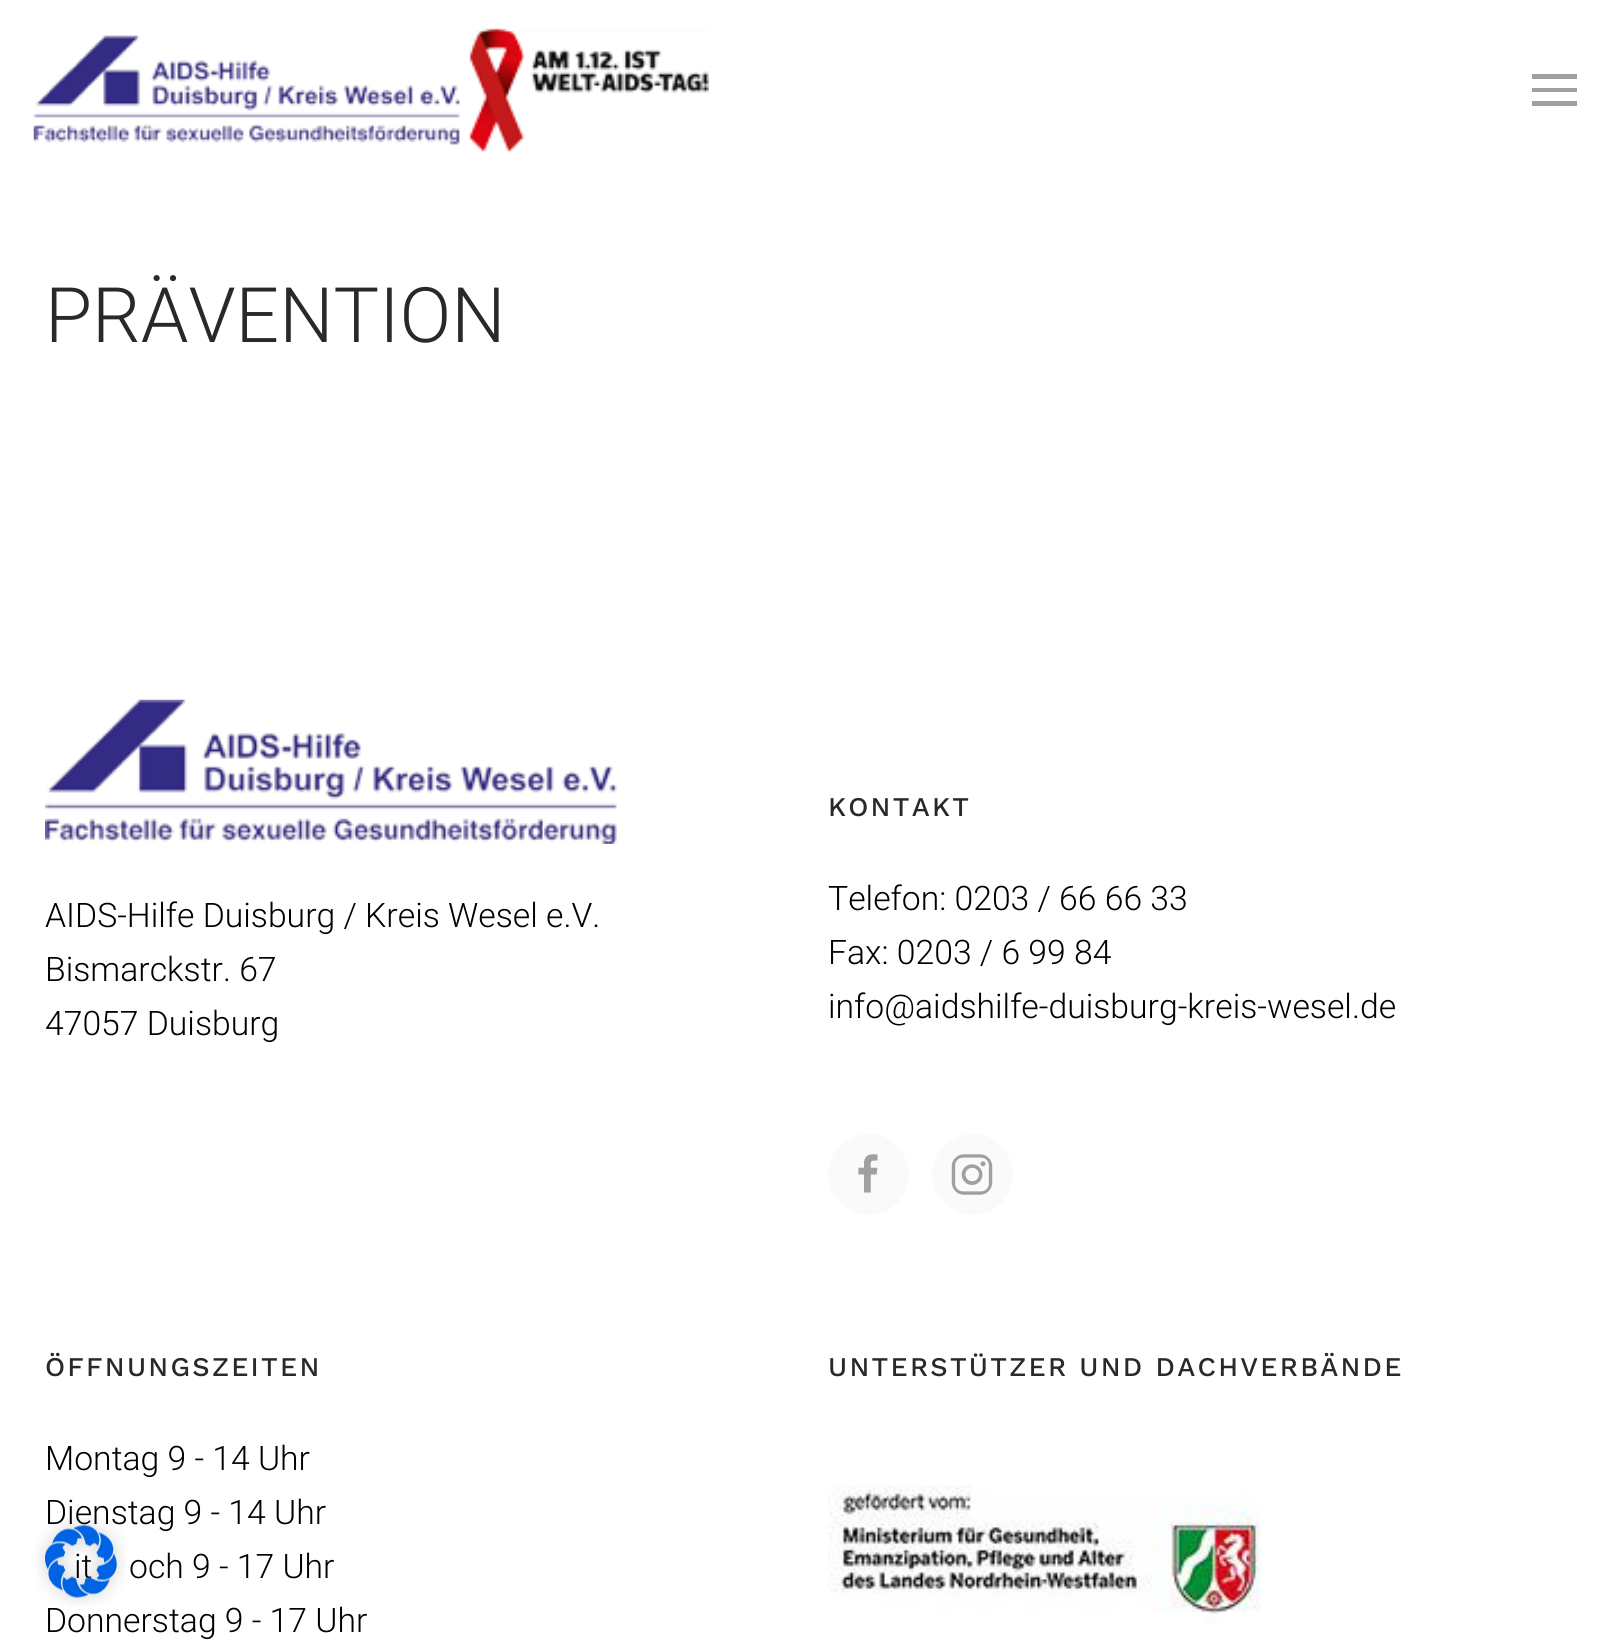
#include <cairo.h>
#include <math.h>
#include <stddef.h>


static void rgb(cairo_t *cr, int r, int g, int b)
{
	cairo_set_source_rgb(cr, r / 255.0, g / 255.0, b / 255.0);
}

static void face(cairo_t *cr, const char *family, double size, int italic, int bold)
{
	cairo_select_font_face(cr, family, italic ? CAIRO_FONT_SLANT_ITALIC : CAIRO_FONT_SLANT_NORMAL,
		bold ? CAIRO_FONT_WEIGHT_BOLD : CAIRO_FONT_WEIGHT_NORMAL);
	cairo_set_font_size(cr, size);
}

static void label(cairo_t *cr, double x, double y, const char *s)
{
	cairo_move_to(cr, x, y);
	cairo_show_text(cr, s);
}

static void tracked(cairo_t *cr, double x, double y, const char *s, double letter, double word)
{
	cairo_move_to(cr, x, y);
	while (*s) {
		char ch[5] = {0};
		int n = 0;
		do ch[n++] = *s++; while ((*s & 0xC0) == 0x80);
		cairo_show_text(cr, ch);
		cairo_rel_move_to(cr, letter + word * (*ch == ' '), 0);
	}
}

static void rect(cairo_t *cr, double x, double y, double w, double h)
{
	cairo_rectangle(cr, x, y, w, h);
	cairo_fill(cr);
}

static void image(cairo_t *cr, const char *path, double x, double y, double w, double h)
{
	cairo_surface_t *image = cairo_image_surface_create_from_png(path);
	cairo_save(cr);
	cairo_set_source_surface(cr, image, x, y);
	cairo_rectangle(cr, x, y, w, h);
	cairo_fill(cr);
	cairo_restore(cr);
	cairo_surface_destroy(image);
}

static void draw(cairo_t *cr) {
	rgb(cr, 255, 255, 255);
	cairo_paint(cr);
	image(cr, "image0.png", 33, 28, 676, 124);
	rgb(cr, 160, 160, 160);
	rect(cr, 1532, 74, 45, 5);
	rect(cr, 1532, 88, 45, 4);
	rect(cr, 1532, 101, 45, 5);
	face(cr, "Roboto Light", 76.5, 0, 0);
	rgb(cr, 41, 41, 41);
	label(cr, 45, 342, "PRÄVENTION");
	image(cr, "image1.png", 45, 699, 572, 145);
	face(cr, "Roboto Light", 33.75, 0, 0);
	rgb(cr, 0, 0, 0);
	label(cr, 45, 927, "AIDS-Hilfe Duisburg / Kreis Wesel e.V.");
	label(cr, 45, 981, "Bismarckstr. 67");
	label(cr, 45, 1035, "47057 Duisburg");
	face(cr, "Work Sans Medium", 27, 0, 0);
	rgb(cr, 41, 41, 41);
	tracked(cr, 828, 816, "KONTAKT", 2.25, 0);
	face(cr, "Roboto Light", 33.75, 0, 0);
	rgb(cr, 0, 0, 0);
	label(cr, 828, 910, "Telefon: 0203 / 66 66 33");
	label(cr, 828, 964, "Fax: 0203 / 6 99 84");
	label(cr, 828, 1018, "info@aidshilfe-duisburg-kreis-wesel.de");
	rgb(cr, 250, 250, 250);
	cairo_new_path(cr);
	cairo_arc(cr, 868.5, 1174.5, 40.5, 0, 2 * M_PI);
	cairo_fill(cr);
	image(cr, "image2.png", 858, 1154, 20, 39);
	cairo_arc(cr, 972.5, 1174.5, 40.5, 0, 2 * M_PI);
	cairo_fill(cr);
	image(cr, "image3.png", 951, 1154, 42, 41);
	face(cr, "Work Sans Medium", 27, 0, 0);
	rgb(cr, 41, 41, 41);
	tracked(cr, 45, 1376, "ÖFFNUNGSZEITEN", 2.25, 0);
	face(cr, "Roboto Light", 33.75, 0, 0);
	rgb(cr, 0, 0, 0);
	label(cr, 45, 1470, "Montag 9 - 14 Uhr");
	label(cr, 45, 1524, "Dienstag 9 - 14 Uhr");
	label(cr, 74, 1578, "it");
	label(cr, 129, 1578, "och 9 - 17 Uhr");
	label(cr, 45, 1632, "Donnerstag 9 - 17 Uhr");
	face(cr, "Work Sans Medium", 27, 0, 0);
	rgb(cr, 41, 41, 41);
	tracked(cr, 828, 1376, "UNTERSTÜTZER UND DACHVERBÄNDE", 2.25, 0);
	image(cr, "image4.png", 828, 1485, 434, 139);
	image(cr, "image5.png", 36, 1517, 90, 89);
}

int main(void) {
	cairo_surface_t *surface = cairo_image_surface_create(CAIRO_FORMAT_RGB24, 1610, 1642);
	cairo_t *cr = cairo_create(surface);
	cairo_font_options_t *options = cairo_font_options_create();
	cairo_font_options_set_hint_metrics(options, CAIRO_HINT_METRICS_OFF);
	cairo_font_options_set_hint_style(options, CAIRO_HINT_STYLE_NONE);
	cairo_set_font_options(cr, options);
	cairo_set_miter_limit(cr, 4);
	draw(cr);
	cairo_surface_write_to_png(surface, "render.png");
	cairo_font_options_destroy(options);
	cairo_destroy(cr);
	cairo_surface_destroy(surface);
	return 0;
}
